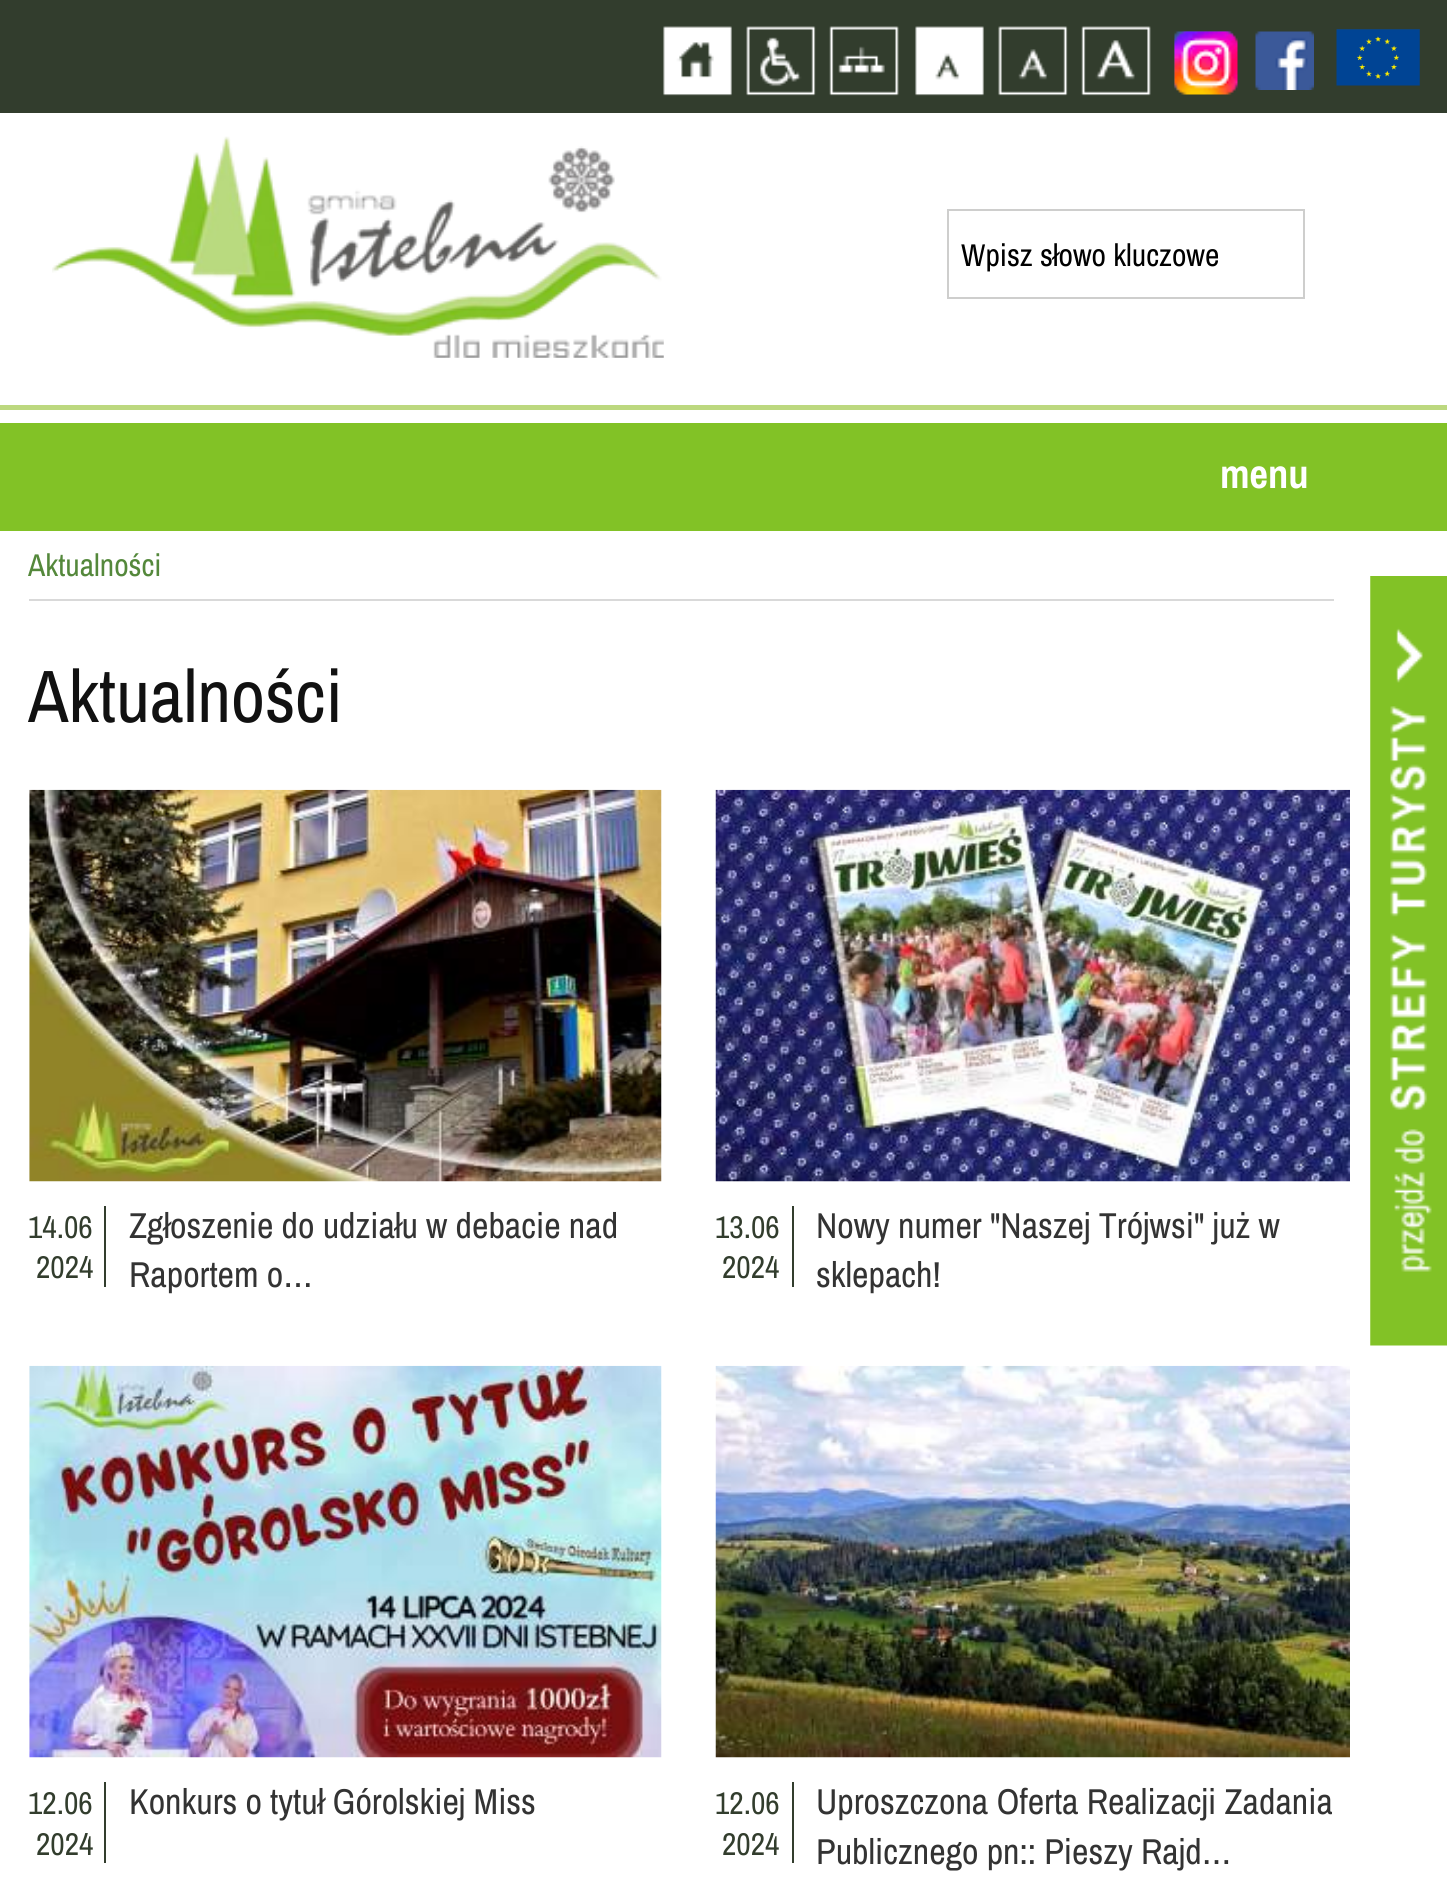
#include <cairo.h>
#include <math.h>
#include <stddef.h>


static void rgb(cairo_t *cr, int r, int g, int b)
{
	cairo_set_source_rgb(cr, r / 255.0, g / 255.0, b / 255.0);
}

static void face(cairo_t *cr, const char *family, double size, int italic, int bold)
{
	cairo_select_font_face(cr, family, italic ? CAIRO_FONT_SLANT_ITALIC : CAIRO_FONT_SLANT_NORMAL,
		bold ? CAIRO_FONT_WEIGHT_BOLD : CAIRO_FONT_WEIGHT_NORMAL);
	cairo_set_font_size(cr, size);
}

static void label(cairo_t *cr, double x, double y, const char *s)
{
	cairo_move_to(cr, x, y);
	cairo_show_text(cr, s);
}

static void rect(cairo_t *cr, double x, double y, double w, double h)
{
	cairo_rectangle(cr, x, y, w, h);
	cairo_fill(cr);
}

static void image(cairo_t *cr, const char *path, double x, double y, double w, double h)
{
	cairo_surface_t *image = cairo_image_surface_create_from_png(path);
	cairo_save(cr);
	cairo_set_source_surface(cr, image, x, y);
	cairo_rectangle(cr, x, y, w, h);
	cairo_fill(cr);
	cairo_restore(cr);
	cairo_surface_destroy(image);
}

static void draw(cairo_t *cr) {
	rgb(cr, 255, 255, 255);
	cairo_paint(cr);
	rgb(cr, 188, 216, 127);
	rect(cr, 0, 405, 1447, 5);
	rgb(cr, 50, 61, 45);
	rect(cr, 0, 0, 1447, 113);
	image(cr, "image0.png", 663, 26, 69, 70);
	image(cr, "image1.png", 746, 26, 70, 70);
	image(cr, "image2.png", 829, 26, 70, 70);
	image(cr, "image3.png", 915, 26, 69, 70);
	image(cr, "image4.png", 998, 26, 70, 70);
	image(cr, "image5.png", 1081, 26, 70, 70);
	image(cr, "image6.png", 1174, 31, 59, 59);
	image(cr, "image7.png", 1174, 31, 64, 64);
	image(cr, "image6.png", 1255, 31, 59, 59);
	image(cr, "image8.png", 1336, 29, 84, 57);
	image(cr, "image9.png", 52, 136, 612, 222);
	cairo_rectangle(cr, 948, 210, 356, 88);
	rgb(cr, 206, 206, 205);
	cairo_stroke(cr);
	face(cr, "Archivo Narrow", 31.5, 0, 0);
	rgb(cr, 0, 0, 0);
	label(cr, 961, 266, "Wpisz słowo kluczowe");
	rgb(cr, 130, 194, 38);
	rect(cr, 0, 423, 1447, 108);
	face(cr, "Archivo Narrow", 40.5, 0, 1);
	rgb(cr, 255, 255, 255);
	label(cr, 1220, 488, "menu");
	rgb(cr, 217, 217, 217);
	rect(cr, 29, 599, 1305, 2);
	face(cr, "Archivo Narrow", 31.5, 0, 0);
	rgb(cr, 84, 136, 59);
	label(cr, 28, 576, "Aktualności");
	face(cr, "Archivo Narrow", 74.25, 0, 0);
	rgb(cr, 17, 17, 17);
	label(cr, 28, 722, "Aktualności");
	image(cr, "image10.png", 29, 789, 633, 393);
	rgb(cr, 50, 61, 45);
	rect(cr, 104, 1206, 2, 81);
	face(cr, "Archivo Narrow", 31.5, 0, 0);
	label(cr, 28, 1238, "14.06");
	label(cr, 36, 1278, "2024");
	face(cr, "Archivo Narrow", 36, 0, 0);
	rgb(cr, 51, 51, 51);
	label(cr, 129, 1238, "Zgłoszenie do udziału w debacie nad");
	label(cr, 129, 1287, "Raportem o…");
	image(cr, "image11.png", 715, 789, 635, 393);
	rgb(cr, 50, 61, 45);
	rect(cr, 792, 1206, 2, 81);
	face(cr, "Archivo Narrow", 31.5, 0, 0);
	label(cr, 715, 1238, "13.06");
	label(cr, 722, 1278, "2024");
	face(cr, "Archivo Narrow", 36, 0, 0);
	rgb(cr, 51, 51, 51);
	label(cr, 816, 1238, "Nowy numer \"Naszej Trójwsi\" już w");
	label(cr, 816, 1287, "sklepach!");
	image(cr, "image12.png", 29, 1365, 633, 393);
	rgb(cr, 50, 61, 45);
	rect(cr, 104, 1782, 2, 81);
	face(cr, "Archivo Narrow", 31.5, 0, 0);
	label(cr, 28, 1814, "12.06");
	label(cr, 36, 1855, "2024");
	face(cr, "Archivo Narrow", 36, 0, 0);
	rgb(cr, 51, 51, 51);
	label(cr, 129, 1814, "Konkurs o tytuł Górolskiej Miss");
	image(cr, "image13.png", 715, 1365, 635, 393);
	rgb(cr, 50, 61, 45);
	rect(cr, 792, 1782, 2, 81);
	face(cr, "Archivo Narrow", 31.5, 0, 0);
	label(cr, 715, 1814, "12.06");
	label(cr, 722, 1855, "2024");
	face(cr, "Archivo Narrow", 36, 0, 0);
	rgb(cr, 51, 51, 51);
	label(cr, 816, 1814, "Uproszczona Oferta Realizacji Zadania");
	label(cr, 816, 1864, "Publicznego pn:: Pieszy Rajd…");
	image(cr, "image14.png", 1370, 576, 77, 770);
}

int main(void) {
	cairo_surface_t *surface = cairo_image_surface_create(CAIRO_FORMAT_RGB24, 1447, 1890);
	cairo_t *cr = cairo_create(surface);
	cairo_font_options_t *options = cairo_font_options_create();
	cairo_font_options_set_hint_metrics(options, CAIRO_HINT_METRICS_OFF);
	cairo_font_options_set_hint_style(options, CAIRO_HINT_STYLE_NONE);
	cairo_set_font_options(cr, options);
	cairo_set_miter_limit(cr, 4);
	draw(cr);
	cairo_surface_write_to_png(surface, "render.png");
	cairo_font_options_destroy(options);
	cairo_destroy(cr);
	cairo_surface_destroy(surface);
	return 0;
}
